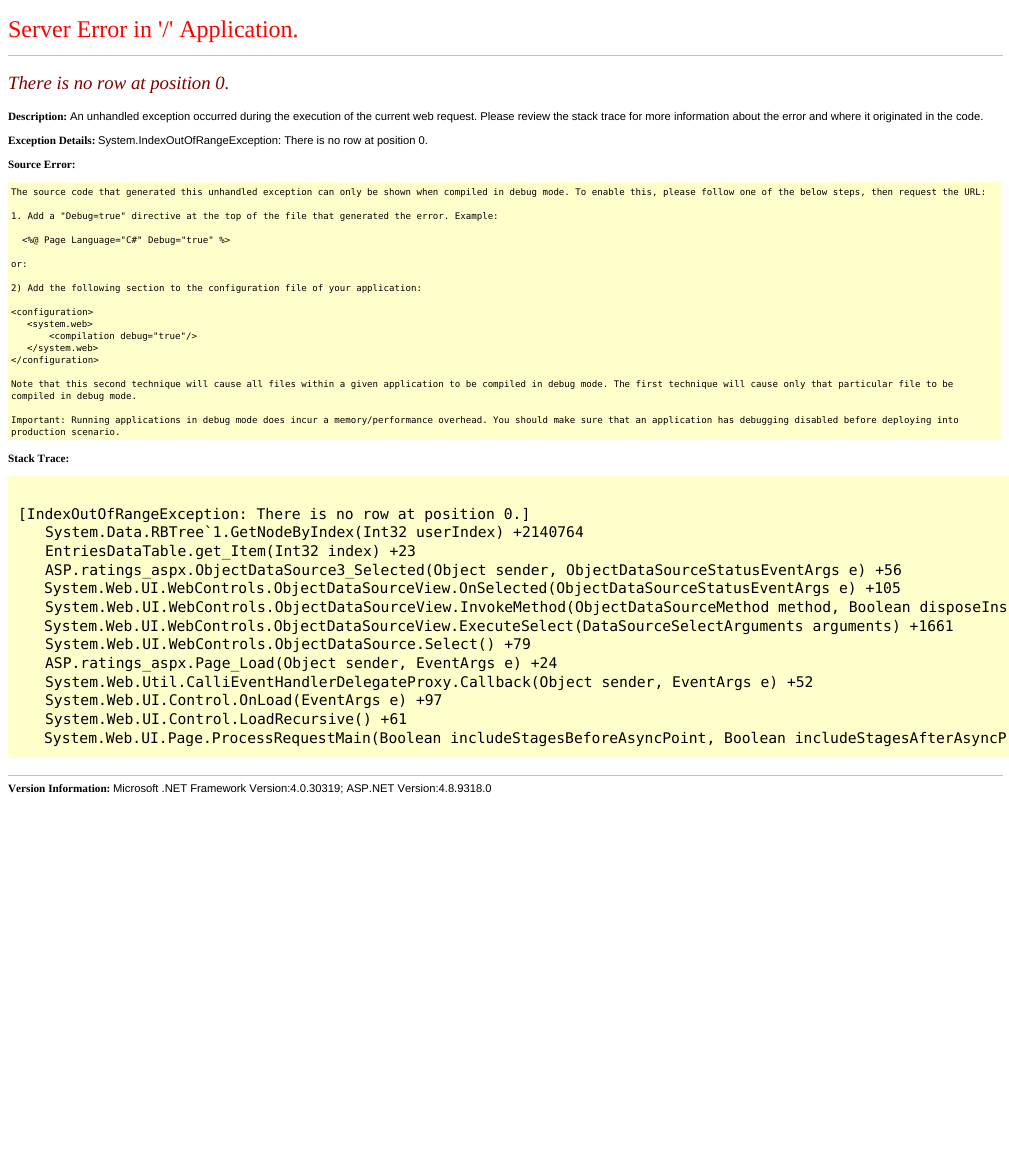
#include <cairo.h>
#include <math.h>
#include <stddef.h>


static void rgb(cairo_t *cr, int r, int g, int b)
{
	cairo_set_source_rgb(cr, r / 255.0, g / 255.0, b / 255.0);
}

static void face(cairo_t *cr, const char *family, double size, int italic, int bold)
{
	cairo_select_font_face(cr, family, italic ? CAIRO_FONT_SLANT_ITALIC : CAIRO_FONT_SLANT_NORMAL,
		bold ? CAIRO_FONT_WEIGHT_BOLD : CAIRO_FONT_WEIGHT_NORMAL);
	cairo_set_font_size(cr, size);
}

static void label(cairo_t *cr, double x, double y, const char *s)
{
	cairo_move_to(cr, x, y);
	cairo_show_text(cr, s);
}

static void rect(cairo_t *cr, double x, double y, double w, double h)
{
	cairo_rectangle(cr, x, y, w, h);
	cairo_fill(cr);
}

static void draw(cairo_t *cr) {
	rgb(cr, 255, 255, 255);
	cairo_paint(cr);
	face(cr, "Liberation Serif", 24, 0, 0);
	rgb(cr, 255, 0, 0);
	label(cr, 8, 37, "Server Error in '/' Application.");
	rgb(cr, 192, 192, 192);
	rect(cr, 8, 55, 995, 1);
	face(cr, "Liberation Serif", 18.75, 1, 0);
	rgb(cr, 128, 0, 0);
	label(cr, 8, 89, "There is no row at position 0.");
	face(cr, "Liberation Serif", 11.2, 0, 1);
	rgb(cr, 0, 0, 0);
	label(cr, 8, 120, "Description:");
	face(cr, "Liberation Sans", 11.2, 0, 0);
	label(cr, 70, 120, "An unhandled exception occurred during the execution of the current web request. Please review the stack trace for more information about the error and where it originated in the code.");
	face(cr, "Liberation Serif", 11.2, 0, 1);
	label(cr, 8, 144, "Exception Details:");
	face(cr, "Liberation Sans", 11.2, 0, 0);
	label(cr, 98, 144, "System.IndexOutOfRangeException: There is no row at position 0.");
	face(cr, "Liberation Serif", 11.2, 0, 1);
	label(cr, 8, 168, "Source Error:");
	rgb(cr, 255, 255, 204);
	rect(cr, 8, 182, 993, 258);
	face(cr, "DejaVu Sans Mono", 9.1, 0, 0);
	rgb(cr, 0, 0, 0);
	label(cr, 11, 195, "The source code that generated this unhandled exception can only be shown when compiled in debug mode. To enable this, please follow one of the below steps, then request the URL:");
	label(cr, 11, 219, "1. Add a \"Debug=true\" directive at the top of the file that generated the error. Example:");
	label(cr, 22, 243, "<%@ Page Language=\"C#\" Debug=\"true\" %>");
	label(cr, 11, 267, "or:");
	label(cr, 11, 291, "2) Add the following section to the configuration file of your application:");
	label(cr, 11, 315, "<configuration>");
	label(cr, 27, 327, "<system.web>");
	label(cr, 49, 339, "<compilation debug=\"true\"/>");
	label(cr, 27, 351, "</system.web>");
	label(cr, 11, 363, "</configuration>");
	label(cr, 11, 387, "Note that this second technique will cause all files within a given application to be compiled in debug mode. The first technique will cause only that particular file to be");
	label(cr, 11, 399, "compiled in debug mode.");
	label(cr, 11, 423, "Important: Running applications in debug mode does incur a memory/performance overhead. You should make sure that an application has debugging disabled before deploying into");
	label(cr, 11, 435, "production scenario.");
	face(cr, "Liberation Serif", 11.2, 0, 1);
	label(cr, 8, 462, "Stack Trace:");
	rgb(cr, 255, 255, 204);
	rect(cr, 8, 476, 1001, 282);
	face(cr, "DejaVu Sans Mono", 14.67, 0, 0);
	rgb(cr, 0, 0, 0);
	label(cr, 18, 519, "[IndexOutOfRangeException: There is no row at position 0.]");
	label(cr, 45, 537, "System.Data.RBTree`1.GetNodeByIndex(Int32 userIndex) +2140764");
	label(cr, 45, 556, "EntriesDataTable.get_Item(Int32 index) +23");
	label(cr, 45, 575, "ASP.ratings_aspx.ObjectDataSource3_Selected(Object sender, ObjectDataSourceStatusEventArgs e) +56");
	label(cr, 44, 593, "System.Web.UI.WebControls.ObjectDataSourceView.OnSelected(ObjectDataSourceStatusEventArgs e) +105");
	label(cr, 45, 612, "System.Web.UI.WebControls.ObjectDataSourceView.InvokeMethod(ObjectDataSourceMethod method, Boolean disposeIns");
	label(cr, 44, 631, "System.Web.UI.WebControls.ObjectDataSourceView.ExecuteSelect(DataSourceSelectArguments arguments) +1661");
	label(cr, 45, 649, "System.Web.UI.WebControls.ObjectDataSource.Select() +79");
	label(cr, 45, 668, "ASP.ratings_aspx.Page_Load(Object sender, EventArgs e) +24");
	label(cr, 45, 687, "System.Web.Util.CalliEventHandlerDelegateProxy.Callback(Object sender, EventArgs e) +52");
	label(cr, 45, 705, "System.Web.UI.Control.OnLoad(EventArgs e) +97");
	label(cr, 45, 724, "System.Web.UI.Control.LoadRecursive() +61");
	label(cr, 44, 743, "System.Web.UI.Page.ProcessRequestMain(Boolean includeStagesBeforeAsyncPoint, Boolean includeStagesAfterAsyncP");
	rgb(cr, 192, 192, 192);
	rect(cr, 8, 775, 995, 1);
	face(cr, "Liberation Serif", 11.2, 0, 1);
	rgb(cr, 0, 0, 0);
	label(cr, 8, 792, "Version Information:");
	face(cr, "Liberation Sans", 11.2, 0, 0);
	label(cr, 113, 792, "Microsoft .NET Framework Version:4.0.30319; ASP.NET Version:4.8.9318.0");
}

int main(void) {
	cairo_surface_t *surface = cairo_image_surface_create(CAIRO_FORMAT_RGB24, 1009, 1149);
	cairo_t *cr = cairo_create(surface);
	cairo_font_options_t *options = cairo_font_options_create();
	cairo_font_options_set_hint_metrics(options, CAIRO_HINT_METRICS_OFF);
	cairo_font_options_set_hint_style(options, CAIRO_HINT_STYLE_NONE);
	cairo_set_font_options(cr, options);
	cairo_set_miter_limit(cr, 4);
	draw(cr);
	cairo_surface_write_to_png(surface, "render.png");
	cairo_font_options_destroy(options);
	cairo_destroy(cr);
	cairo_surface_destroy(surface);
	return 0;
}
